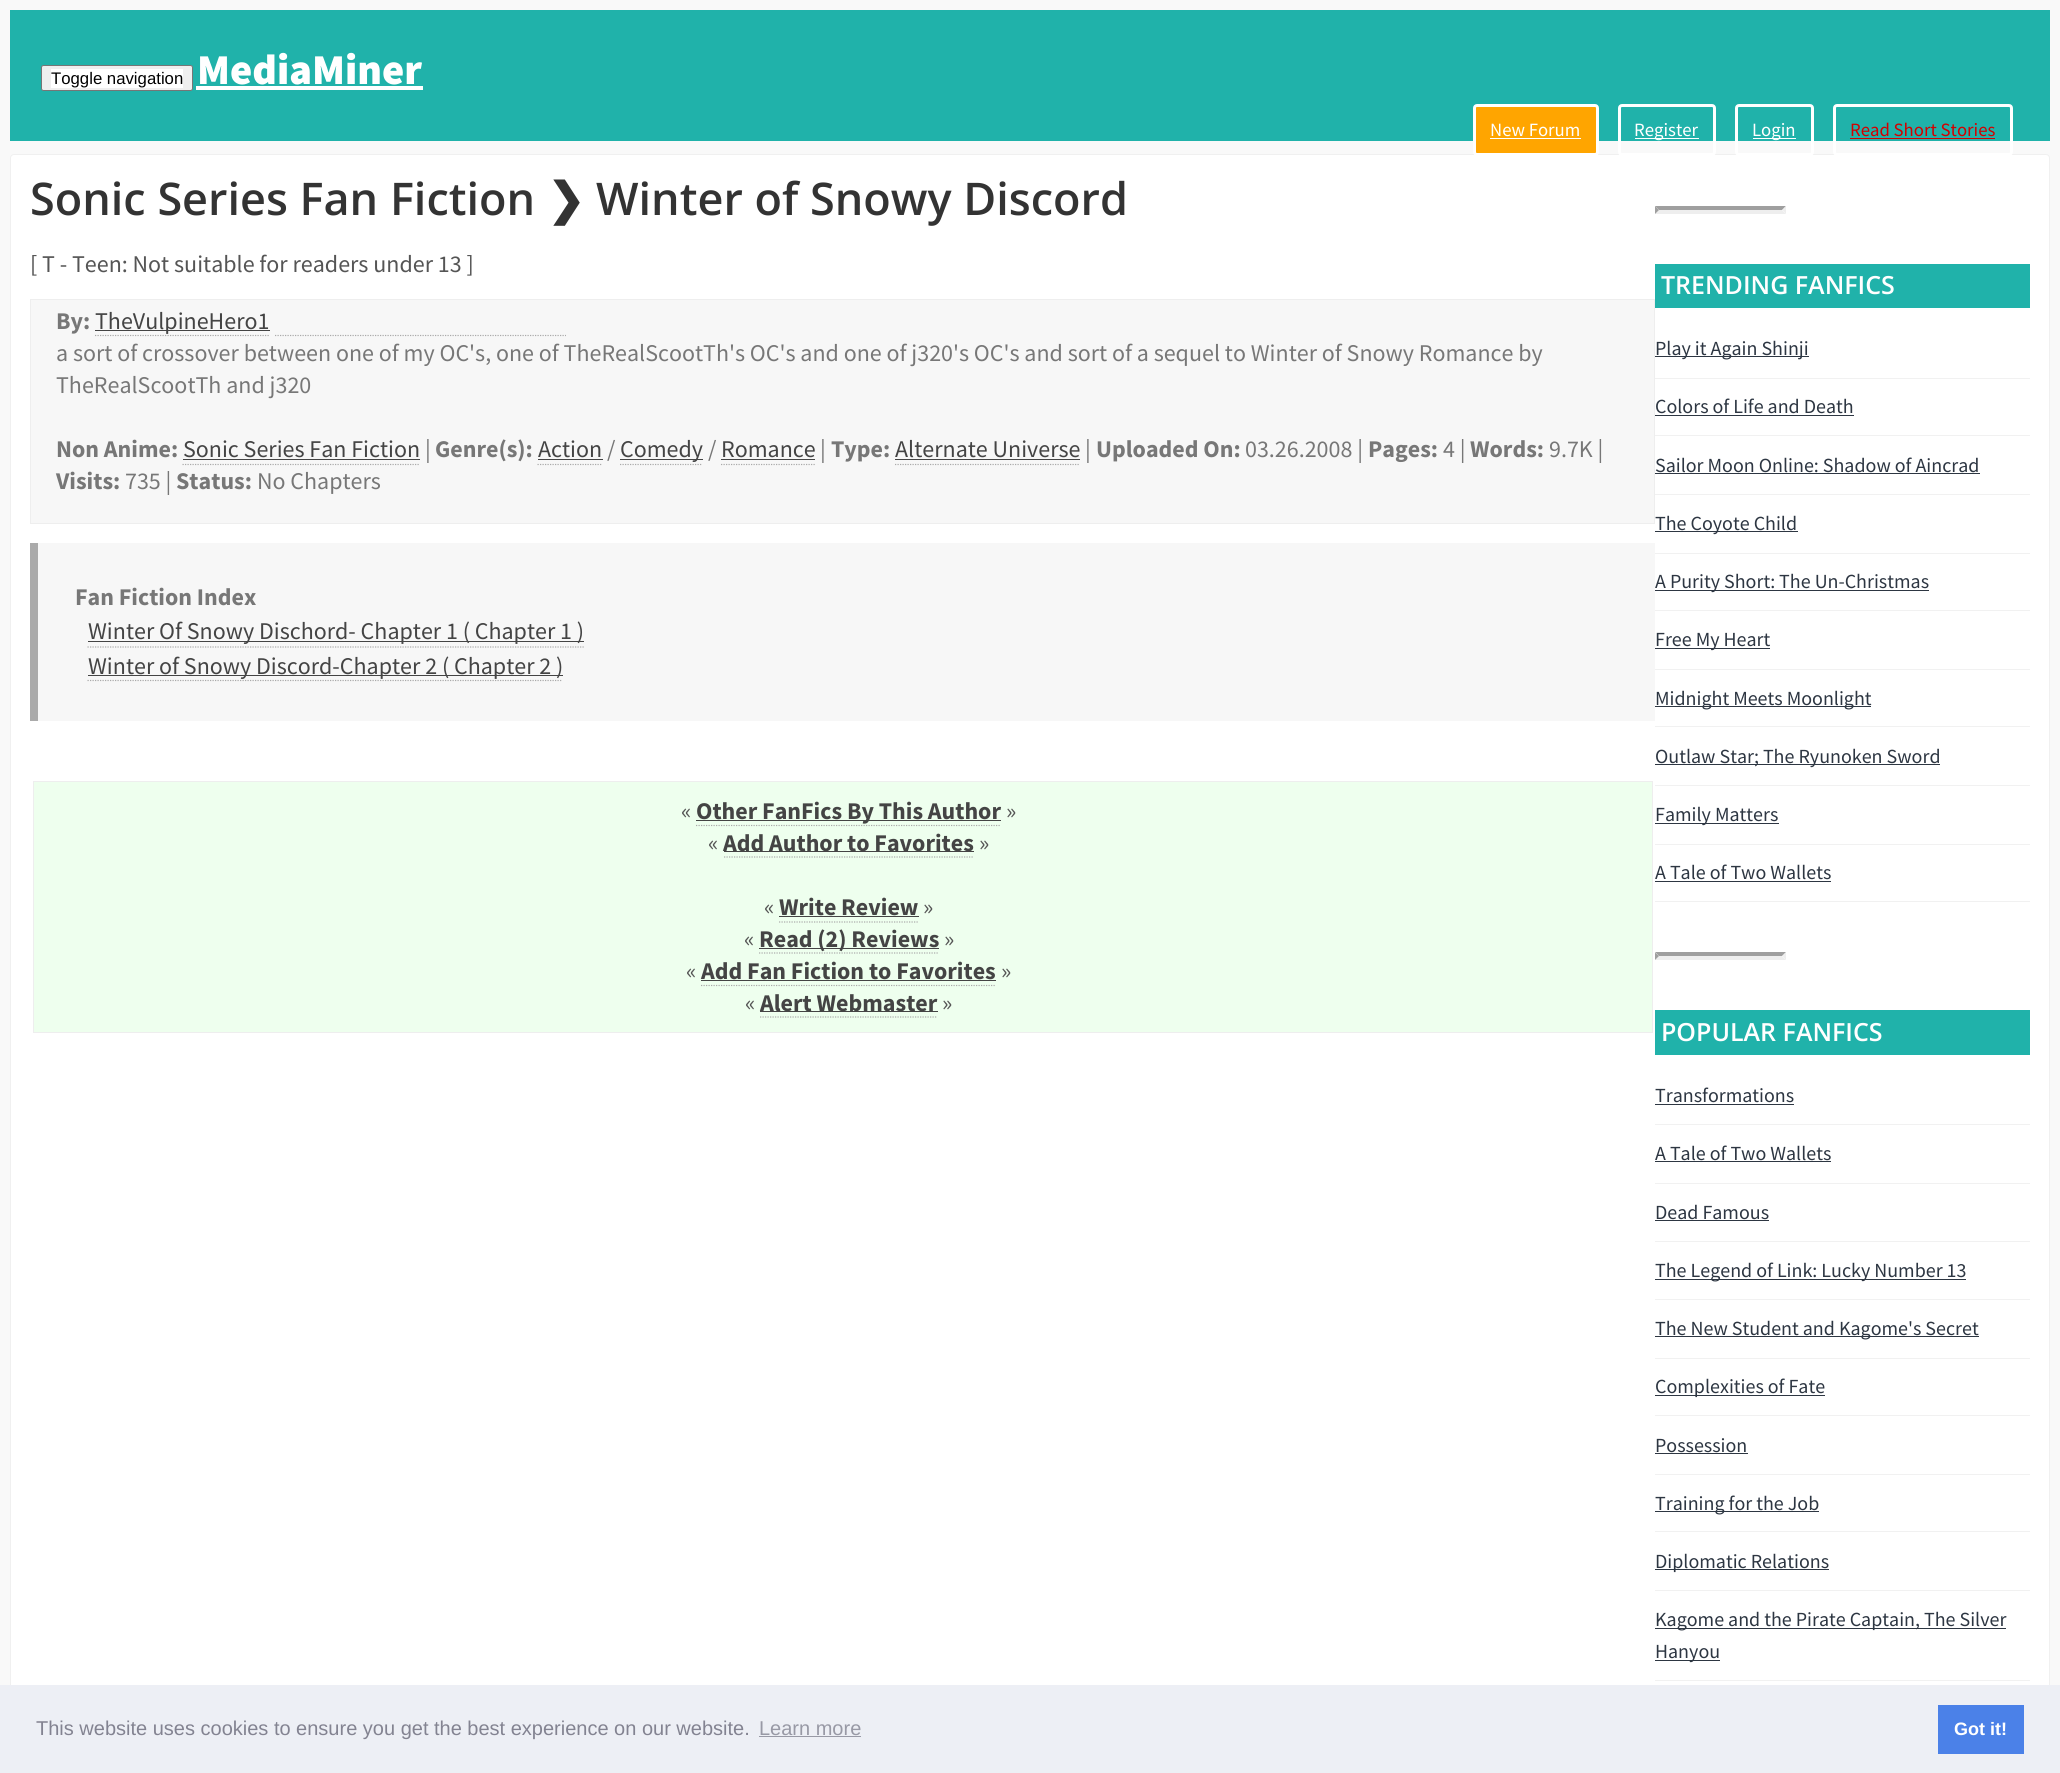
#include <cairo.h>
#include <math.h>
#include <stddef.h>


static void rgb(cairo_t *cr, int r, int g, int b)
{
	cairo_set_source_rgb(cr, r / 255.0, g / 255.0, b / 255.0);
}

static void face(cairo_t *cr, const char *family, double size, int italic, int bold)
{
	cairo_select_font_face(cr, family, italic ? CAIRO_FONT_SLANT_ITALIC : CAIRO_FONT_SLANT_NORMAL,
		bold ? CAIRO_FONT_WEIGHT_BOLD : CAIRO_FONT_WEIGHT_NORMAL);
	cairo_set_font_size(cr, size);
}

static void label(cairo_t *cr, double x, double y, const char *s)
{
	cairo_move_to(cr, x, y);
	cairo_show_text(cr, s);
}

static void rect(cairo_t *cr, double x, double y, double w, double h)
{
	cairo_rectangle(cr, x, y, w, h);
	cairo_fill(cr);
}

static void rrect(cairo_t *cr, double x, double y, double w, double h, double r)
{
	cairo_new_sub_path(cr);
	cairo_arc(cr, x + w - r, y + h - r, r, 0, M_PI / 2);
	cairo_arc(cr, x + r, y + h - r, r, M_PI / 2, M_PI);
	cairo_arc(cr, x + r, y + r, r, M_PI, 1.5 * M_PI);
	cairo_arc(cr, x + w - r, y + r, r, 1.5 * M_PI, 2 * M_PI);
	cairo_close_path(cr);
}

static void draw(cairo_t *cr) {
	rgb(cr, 249, 249, 249);
	cairo_paint(cr);
	rgb(cr, 32, 178, 170);
	rect(cr, 10, 10, 2040, 131);
	rgb(cr, 239, 239, 239);
	rrect(cr, 41.5, 65.5, 151, 25, 2);
	cairo_fill_preserve(cr);
	rgb(cr, 118, 118, 118);
	cairo_set_line_width(cr, 1);
	cairo_stroke(cr);
	rgb(cr, 255, 255, 255);
	rect(cr, 51, 69, 132, 19);
	face(cr, "Liberation Sans", 16.75, 0, 0);
	rgb(cr, 0, 0, 0);
	label(cr, 51, 84, "Toggle navigation");
	face(cr, "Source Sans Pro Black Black", 42.5, 0, 0);
	rgb(cr, 255, 255, 255);
	label(cr, 197, 84, "MediaMiner");
	rect(cr, 196, 86, 227, 4);
	rrect(cr, 10.5, 154.5, 2039, 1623, 3.5);
	cairo_fill_preserve(cr);
	rgb(cr, 240, 240, 240);
	cairo_stroke(cr);
	rgb(cr, 255, 165, 0);
	rrect(cr, 1474.5, 105.5, 123, 49, 2.5);
	cairo_fill_preserve(cr);
	rgb(cr, 255, 255, 255);
	cairo_set_line_width(cr, 3);
	cairo_stroke(cr);
	face(cr, "Source Sans Pro", 18.75, 0, 0);
	label(cr, 1490, 136, "New Forum");
	rect(cr, 1490, 138, 91, 1);
	rrect(cr, 1619.5, 105.5, 95, 49, 2.5);
	cairo_stroke(cr);
	rect(cr, 1635, 138, 64, 1);
	label(cr, 1634, 136, "Register");
	rrect(cr, 1736.5, 105.5, 76, 49, 2.5);
	cairo_stroke(cr);
	rect(cr, 1753, 138, 43, 1);
	label(cr, 1752, 136, "Login");
	rrect(cr, 1834.5, 105.5, 177, 49, 2.5);
	cairo_stroke(cr);
	rgb(cr, 211, 0, 0);
	label(cr, 1850, 136, "Read Short Stories");
	rect(cr, 1850, 138, 145, 1);
	face(cr, "Open Sans SemiBold", 45, 0, 0);
	rgb(cr, 51, 51, 51);
	label(cr, 30, 215, "Sonic Series Fan Fiction");
	face(cr, "DejaVu Sans", 45, 0, 1);
	label(cr, 547, 215, "❯");
	face(cr, "Open Sans SemiBold", 45, 0, 0);
	label(cr, 596, 215, "Winter of Snowy Discord");
	face(cr, "Source Sans Pro", 24, 0, 0);
	rgb(cr, 85, 85, 85);
	label(cr, 30, 272, "[ T - Teen: Not suitable for readers under 13 ]");
	rgb(cr, 247, 247, 247);
	cairo_rectangle(cr, 30.5, 299.5, 1624, 224);
	cairo_fill_preserve(cr);
	rgb(cr, 238, 238, 238);
	cairo_set_line_width(cr, 1);
	cairo_stroke(cr);
	face(cr, "Source Sans Pro", 24, 0, 1);
	rgb(cr, 119, 119, 119);
	label(cr, 56, 329, "By:");
	rgb(cr, 68, 68, 68);
	rect(cr, 95, 330, 175, 1);
	face(cr, "Source Sans Pro", 24, 0, 0);
	label(cr, 95, 329, "TheVulpineHero1");
	cairo_new_path(cr);
	cairo_move_to(cr, 95, 335.5);
	cairo_line_to(cr, 270, 335.5);
	rgb(cr, 170, 170, 170);
	cairo_set_line_width(cr, 1.2);
	cairo_set_dash(cr, (double[]){1.25, 1.25}, 2, 0);
	cairo_stroke(cr);
	cairo_new_path(cr);
	cairo_move_to(cr, 275, 335.5);
	cairo_line_to(cr, 566, 335.5);
	cairo_stroke(cr);
	rgb(cr, 119, 119, 119);
	label(cr, 56, 361, "a sort of crossover between one of my OC's, one of TheRealScootTh's OC's and one of j320's OC's and sort of a sequel to Winter of Snowy Romance by");
	label(cr, 56, 393, "TheRealScootTh and j320");
	face(cr, "Source Sans Pro", 24, 0, 1);
	label(cr, 56, 457, "Non Anime:");
	face(cr, "Source Sans Pro", 24, 0, 0);
	rgb(cr, 68, 68, 68);
	label(cr, 183, 457, "Sonic Series Fan Fiction");
	cairo_new_path(cr);
	cairo_move_to(cr, 182.5, 464.5);
	cairo_line_to(cr, 420, 464.5);
	rgb(cr, 170, 170, 170);
	cairo_stroke(cr);
	rgb(cr, 68, 68, 68);
	rect(cr, 183, 459, 237, 1);
	rgb(cr, 119, 119, 119);
	label(cr, 425, 457, "|");
	face(cr, "Source Sans Pro", 24, 0, 1);
	label(cr, 435, 457, "Genre(s):");
	face(cr, "Source Sans Pro", 24, 0, 0);
	rgb(cr, 68, 68, 68);
	label(cr, 538, 457, "Action");
	cairo_new_path(cr);
	cairo_move_to(cr, 537.5, 464.5);
	cairo_line_to(cr, 602.5, 464.5);
	rgb(cr, 170, 170, 170);
	cairo_stroke(cr);
	rgb(cr, 68, 68, 68);
	rect(cr, 538, 459, 65, 1);
	rgb(cr, 119, 119, 119);
	label(cr, 607, 457, "/");
	rgb(cr, 68, 68, 68);
	rect(cr, 620, 459, 83, 1);
	label(cr, 620, 457, "Comedy");
	cairo_new_path(cr);
	cairo_move_to(cr, 620, 464.5);
	cairo_line_to(cr, 702.5, 464.5);
	rgb(cr, 170, 170, 170);
	cairo_stroke(cr);
	rgb(cr, 119, 119, 119);
	label(cr, 708, 457, "/");
	rgb(cr, 68, 68, 68);
	label(cr, 721, 457, "Romance");
	cairo_new_path(cr);
	cairo_move_to(cr, 721, 464.5);
	cairo_line_to(cr, 815, 464.5);
	rgb(cr, 170, 170, 170);
	cairo_stroke(cr);
	rgb(cr, 68, 68, 68);
	rect(cr, 721, 459, 94, 1);
	rgb(cr, 119, 119, 119);
	label(cr, 820, 457, "|");
	face(cr, "Source Sans Pro", 24, 0, 1);
	label(cr, 831, 457, "Type:");
	face(cr, "Source Sans Pro", 24, 0, 0);
	rgb(cr, 68, 68, 68);
	label(cr, 895, 457, "Alternate Universe");
	cairo_new_path(cr);
	cairo_move_to(cr, 895, 464.5);
	cairo_line_to(cr, 1080, 464.5);
	rgb(cr, 170, 170, 170);
	cairo_stroke(cr);
	rgb(cr, 68, 68, 68);
	rect(cr, 895, 459, 185, 1);
	rgb(cr, 119, 119, 119);
	label(cr, 1085, 457, "|");
	face(cr, "Source Sans Pro", 24, 0, 1);
	label(cr, 1096, 457, "Uploaded On:");
	face(cr, "Source Sans Pro", 24, 0, 0);
	label(cr, 1245, 457, "03.26.2008 |");
	face(cr, "Source Sans Pro", 24, 0, 1);
	label(cr, 1368, 457, "Pages:");
	face(cr, "Source Sans Pro", 24, 0, 0);
	label(cr, 1443, 457, "4 |");
	face(cr, "Source Sans Pro", 24, 0, 1);
	label(cr, 1470, 457, "Words:");
	face(cr, "Source Sans Pro", 24, 0, 0);
	label(cr, 1549, 457, "9.7K |");
	face(cr, "Source Sans Pro", 24, 0, 1);
	label(cr, 56, 489, "Visits:");
	face(cr, "Source Sans Pro", 24, 0, 0);
	label(cr, 125, 489, "735 |");
	face(cr, "Source Sans Pro", 24, 0, 1);
	label(cr, 176, 489, "Status:");
	face(cr, "Source Sans Pro", 24, 0, 0);
	label(cr, 257, 489, "No Chapters");
	rgb(cr, 247, 247, 247);
	rect(cr, 38, 543, 1617, 178);
	rgb(cr, 170, 170, 170);
	rect(cr, 30, 543, 8, 178);
	face(cr, "Source Sans Pro", 24, 0, 1);
	rgb(cr, 119, 119, 119);
	label(cr, 75, 605, "Fan Fiction Index");
	rgb(cr, 68, 68, 68);
	rect(cr, 88, 641, 496, 1);
	face(cr, "Source Sans Pro", 24, 0, 0);
	label(cr, 88, 639, "Winter Of Snowy Dischord- Chapter 1 ( Chapter 1 )");
	cairo_new_path(cr);
	cairo_move_to(cr, 87.5, 647);
	cairo_line_to(cr, 584, 647);
	rgb(cr, 170, 170, 170);
	cairo_stroke(cr);
	rgb(cr, 68, 68, 68);
	rect(cr, 88, 675, 475, 1);
	label(cr, 88, 674, "Winter of Snowy Discord-Chapter 2 ( Chapter 2 )");
	cairo_new_path(cr);
	cairo_move_to(cr, 87.5, 680.5);
	cairo_line_to(cr, 562.5, 680.5);
	rgb(cr, 170, 170, 170);
	cairo_stroke(cr);
	rgb(cr, 238, 255, 238);
	cairo_rectangle(cr, 33.5, 781.5, 1619, 251);
	cairo_fill_preserve(cr);
	rgb(cr, 238, 238, 238);
	cairo_set_line_width(cr, 1);
	cairo_set_dash(cr, NULL, 0, 0);
	cairo_stroke(cr);
	rgb(cr, 85, 85, 85);
	label(cr, 681, 819, "«");
	rgb(cr, 68, 68, 68);
	rect(cr, 696, 820, 305, 1);
	face(cr, "Source Sans Pro", 24, 0, 1);
	label(cr, 696, 819, "Other FanFics By This Author");
	cairo_new_path(cr);
	cairo_move_to(cr, 696, 825.5);
	cairo_line_to(cr, 1001, 825.5);
	rgb(cr, 170, 170, 170);
	cairo_set_line_width(cr, 1.2);
	cairo_set_dash(cr, (double[]){1.25, 1.25}, 2, 0);
	cairo_stroke(cr);
	face(cr, "Source Sans Pro", 24, 0, 0);
	rgb(cr, 85, 85, 85);
	label(cr, 1006, 819, "»");
	label(cr, 708, 851, "«");
	rgb(cr, 68, 68, 68);
	rect(cr, 724, 851, 250, 1);
	face(cr, "Source Sans Pro", 24, 0, 1);
	label(cr, 723, 851, "Add Author to Favorites");
	cairo_new_path(cr);
	cairo_move_to(cr, 724, 857);
	cairo_line_to(cr, 974, 857);
	rgb(cr, 170, 170, 170);
	cairo_stroke(cr);
	face(cr, "Source Sans Pro", 24, 0, 0);
	rgb(cr, 85, 85, 85);
	label(cr, 979, 851, "»");
	label(cr, 764, 915, "«");
	face(cr, "Source Sans Pro", 24, 0, 1);
	rgb(cr, 68, 68, 68);
	label(cr, 779, 915, "Write Review");
	cairo_new_path(cr);
	cairo_move_to(cr, 779, 922);
	cairo_line_to(cr, 919, 922);
	rgb(cr, 170, 170, 170);
	cairo_stroke(cr);
	rgb(cr, 68, 68, 68);
	rect(cr, 779, 916, 140, 1);
	face(cr, "Source Sans Pro", 24, 0, 0);
	rgb(cr, 85, 85, 85);
	label(cr, 923, 915, "»");
	label(cr, 744, 947, "«");
	rgb(cr, 68, 68, 68);
	rect(cr, 759, 948, 180, 1);
	face(cr, "Source Sans Pro", 24, 0, 1);
	label(cr, 759, 947, "Read (2) Reviews");
	cairo_new_path(cr);
	cairo_move_to(cr, 759, 953);
	cairo_line_to(cr, 939, 953);
	rgb(cr, 170, 170, 170);
	cairo_stroke(cr);
	face(cr, "Source Sans Pro", 24, 0, 0);
	rgb(cr, 85, 85, 85);
	label(cr, 944, 947, "»");
	label(cr, 686, 979, "«");
	face(cr, "Source Sans Pro", 24, 0, 1);
	rgb(cr, 68, 68, 68);
	label(cr, 701, 979, "Add Fan Fiction to Favorites");
	cairo_new_path(cr);
	cairo_move_to(cr, 701, 985.5);
	cairo_line_to(cr, 996, 985.5);
	rgb(cr, 170, 170, 170);
	cairo_stroke(cr);
	rgb(cr, 68, 68, 68);
	rect(cr, 701, 980, 295, 1);
	face(cr, "Source Sans Pro", 24, 0, 0);
	rgb(cr, 85, 85, 85);
	label(cr, 1001, 979, "»");
	label(cr, 745, 1011, "«");
	rgb(cr, 68, 68, 68);
	rect(cr, 760, 1011, 178, 1);
	face(cr, "Source Sans Pro", 24, 0, 1);
	label(cr, 760, 1011, "Alert Webmaster");
	cairo_new_path(cr);
	cairo_move_to(cr, 760, 1017);
	cairo_line_to(cr, 937.5, 1017);
	rgb(cr, 170, 170, 170);
	cairo_stroke(cr);
	face(cr, "Source Sans Pro", 24, 0, 0);
	rgb(cr, 85, 85, 85);
	label(cr, 942, 1011, "»");
	rgb(cr, 159, 159, 159);
	cairo_new_path(cr);
	cairo_move_to(cr, 1655, 206);
	cairo_line_to(cr, 1786, 206);
	cairo_line_to(cr, 1782, 210);
	cairo_line_to(cr, 1659, 210);
	cairo_close_path(cr);
	cairo_fill(cr);
	rgb(cr, 238, 238, 238);
	cairo_new_path(cr);
	cairo_move_to(cr, 1786, 206);
	cairo_line_to(cr, 1786, 214);
	cairo_line_to(cr, 1782.5, 210);
	cairo_close_path(cr);
	cairo_fill(cr);
	cairo_new_path(cr);
	cairo_move_to(cr, 1786, 214);
	cairo_line_to(cr, 1655, 214);
	cairo_line_to(cr, 1659, 210);
	cairo_line_to(cr, 1782, 210);
	cairo_close_path(cr);
	cairo_fill(cr);
	rgb(cr, 159, 159, 159);
	cairo_new_path(cr);
	cairo_move_to(cr, 1655, 214);
	cairo_line_to(cr, 1655, 206);
	cairo_line_to(cr, 1659, 210);
	cairo_close_path(cr);
	cairo_fill(cr);
	rgb(cr, 32, 178, 170);
	rect(cr, 1655, 264, 375, 44);
	face(cr, "Open Sans SemiBold", 25, 0, 0);
	rgb(cr, 255, 255, 255);
	label(cr, 1661, 294, "TRENDING FANFICS");
	rgb(cr, 241, 241, 241);
	rect(cr, 1655, 378, 375, 1);
	rgb(cr, 45, 54, 66);
	rect(cr, 1655, 356, 154, 1);
	face(cr, "Source Sans Pro", 20, 0, 0);
	label(cr, 1655, 355, "Play it Again Shinji");
	rgb(cr, 241, 241, 241);
	rect(cr, 1655, 435, 375, 1);
	rgb(cr, 45, 54, 66);
	label(cr, 1655, 413, "Colors of Life and Death");
	rect(cr, 1655, 415, 199, 1);
	rgb(cr, 241, 241, 241);
	rect(cr, 1655, 494, 375, 1);
	rgb(cr, 45, 54, 66);
	label(cr, 1655, 472, "Sailor Moon Online: Shadow of Aincrad");
	rect(cr, 1655, 473, 325, 1);
	rgb(cr, 241, 241, 241);
	rect(cr, 1655, 553, 375, 1);
	rgb(cr, 45, 54, 66);
	rect(cr, 1655, 531, 143, 1);
	label(cr, 1655, 530, "The Coyote Child");
	rgb(cr, 241, 241, 241);
	rect(cr, 1655, 610, 375, 1);
	rgb(cr, 45, 54, 66);
	rect(cr, 1655, 590, 274, 1);
	label(cr, 1655, 588, "A Purity Short: The Un-Christmas");
	rgb(cr, 241, 241, 241);
	rect(cr, 1655, 669, 375, 1);
	rgb(cr, 45, 54, 66);
	rect(cr, 1655, 648, 115, 1);
	label(cr, 1655, 646, "Free My Heart");
	rgb(cr, 241, 241, 241);
	rect(cr, 1655, 726, 375, 1);
	rgb(cr, 45, 54, 66);
	rect(cr, 1655, 706, 216, 1);
	label(cr, 1655, 705, "Midnight Meets Moonlight");
	rgb(cr, 241, 241, 241);
	rect(cr, 1655, 785, 375, 1);
	rgb(cr, 45, 54, 66);
	rect(cr, 1655, 764, 285, 1);
	label(cr, 1655, 763, "Outlaw Star; The Ryunoken Sword");
	rgb(cr, 241, 241, 241);
	rect(cr, 1655, 844, 375, 1);
	rgb(cr, 45, 54, 66);
	rect(cr, 1655, 823, 124, 1);
	label(cr, 1655, 821, "Family Matters");
	rgb(cr, 241, 241, 241);
	rect(cr, 1655, 901, 375, 1);
	rgb(cr, 45, 54, 66);
	label(cr, 1655, 879, "A Tale of Two Wallets");
	rect(cr, 1655, 881, 176, 1);
	rgb(cr, 159, 159, 159);
	cairo_new_path(cr);
	cairo_move_to(cr, 1655, 952);
	cairo_line_to(cr, 1786, 952);
	cairo_line_to(cr, 1782, 956);
	cairo_line_to(cr, 1659, 956);
	cairo_close_path(cr);
	cairo_fill(cr);
	rgb(cr, 238, 238, 238);
	cairo_new_path(cr);
	cairo_move_to(cr, 1786, 952.5);
	cairo_line_to(cr, 1786, 960);
	cairo_line_to(cr, 1782.5, 956);
	cairo_close_path(cr);
	cairo_fill(cr);
	cairo_new_path(cr);
	cairo_move_to(cr, 1786, 960);
	cairo_line_to(cr, 1655, 960);
	cairo_line_to(cr, 1659, 956);
	cairo_line_to(cr, 1782, 956);
	cairo_close_path(cr);
	cairo_fill(cr);
	rgb(cr, 159, 159, 159);
	cairo_new_path(cr);
	cairo_move_to(cr, 1655, 960);
	cairo_line_to(cr, 1655, 952.5);
	cairo_line_to(cr, 1659, 956);
	cairo_close_path(cr);
	cairo_fill(cr);
	rgb(cr, 32, 178, 170);
	rect(cr, 1655, 1010, 375, 45);
	face(cr, "Open Sans SemiBold", 25, 0, 0);
	rgb(cr, 255, 255, 255);
	label(cr, 1661, 1041, "POPULAR FANFICS");
	rgb(cr, 241, 241, 241);
	rect(cr, 1655, 1124, 375, 1);
	face(cr, "Source Sans Pro", 20, 0, 0);
	rgb(cr, 45, 54, 66);
	label(cr, 1655, 1102, "Transformations");
	rect(cr, 1655, 1104, 139, 1);
	rgb(cr, 241, 241, 241);
	rect(cr, 1655, 1183, 375, 1);
	rgb(cr, 45, 54, 66);
	label(cr, 1655, 1160, "A Tale of Two Wallets");
	rect(cr, 1655, 1161, 176, 1);
	rgb(cr, 241, 241, 241);
	rect(cr, 1655, 1241, 375, 1);
	rgb(cr, 45, 54, 66);
	label(cr, 1655, 1219, "Dead Famous");
	rect(cr, 1655, 1220, 114, 1);
	rgb(cr, 241, 241, 241);
	rect(cr, 1655, 1299, 375, 1);
	rgb(cr, 45, 54, 66);
	rect(cr, 1655, 1279, 311, 1);
	label(cr, 1655, 1277, "The Legend of Link: Lucky Number 13");
	rgb(cr, 241, 241, 241);
	rect(cr, 1655, 1358, 375, 1);
	rgb(cr, 45, 54, 66);
	rect(cr, 1655, 1336, 324, 1);
	label(cr, 1655, 1335, "The New Student and Kagome's Secret");
	rgb(cr, 241, 241, 241);
	rect(cr, 1655, 1415, 375, 1);
	rgb(cr, 45, 54, 66);
	rect(cr, 1655, 1395, 170, 1);
	label(cr, 1655, 1393, "Complexities of Fate");
	rgb(cr, 241, 241, 241);
	rect(cr, 1655, 1474, 375, 1);
	rgb(cr, 45, 54, 66);
	label(cr, 1655, 1452, "Possession");
	rect(cr, 1655, 1453, 93, 1);
	rgb(cr, 241, 241, 241);
	rect(cr, 1655, 1531, 375, 1);
	rgb(cr, 45, 54, 66);
	rect(cr, 1655, 1511, 164, 1);
	label(cr, 1655, 1510, "Training for the Job");
	rgb(cr, 241, 241, 241);
	rect(cr, 1655, 1590, 375, 1);
	rgb(cr, 45, 54, 66);
	rect(cr, 1655, 1569, 174, 1);
	label(cr, 1655, 1568, "Diplomatic Relations");
	rgb(cr, 241, 241, 241);
	rect(cr, 1655, 1680, 375, 1);
	rgb(cr, 45, 54, 66);
	rect(cr, 1655, 1628, 351, 1);
	label(cr, 1655, 1626, "Kagome and the Pirate Captain, The Silver");
	rect(cr, 1655, 1660, 65, 1);
	label(cr, 1655, 1658, "Hanyou");
	rgb(cr, 237, 239, 245);
	rect(cr, 0, 1685, 2060, 88);
	face(cr, "Liberation Sans", 20, 0, 0);
	rgb(cr, 131, 131, 145);
	label(cr, 36, 1735, "This website uses cookies to ensure you get the best experience on our website.");
	rgb(cr, 152, 153, 165);
	label(cr, 759, 1735, "Learn more");
	rect(cr, 759, 1736, 102, 1);
	rgb(cr, 75, 129, 232);
	rect(cr, 1938, 1705, 86, 49);
	face(cr, "Liberation Sans", 18, 0, 1);
	rgb(cr, 255, 255, 255);
	label(cr, 1954, 1735, "Got it!");
}

int main(void) {
	cairo_surface_t *surface = cairo_image_surface_create(CAIRO_FORMAT_RGB24, 2060, 1773);
	cairo_t *cr = cairo_create(surface);
	cairo_font_options_t *options = cairo_font_options_create();
	cairo_font_options_set_hint_metrics(options, CAIRO_HINT_METRICS_OFF);
	cairo_font_options_set_hint_style(options, CAIRO_HINT_STYLE_NONE);
	cairo_set_font_options(cr, options);
	cairo_set_miter_limit(cr, 4);
	draw(cr);
	cairo_surface_write_to_png(surface, "render.png");
	cairo_font_options_destroy(options);
	cairo_destroy(cr);
	cairo_surface_destroy(surface);
	return 0;
}
